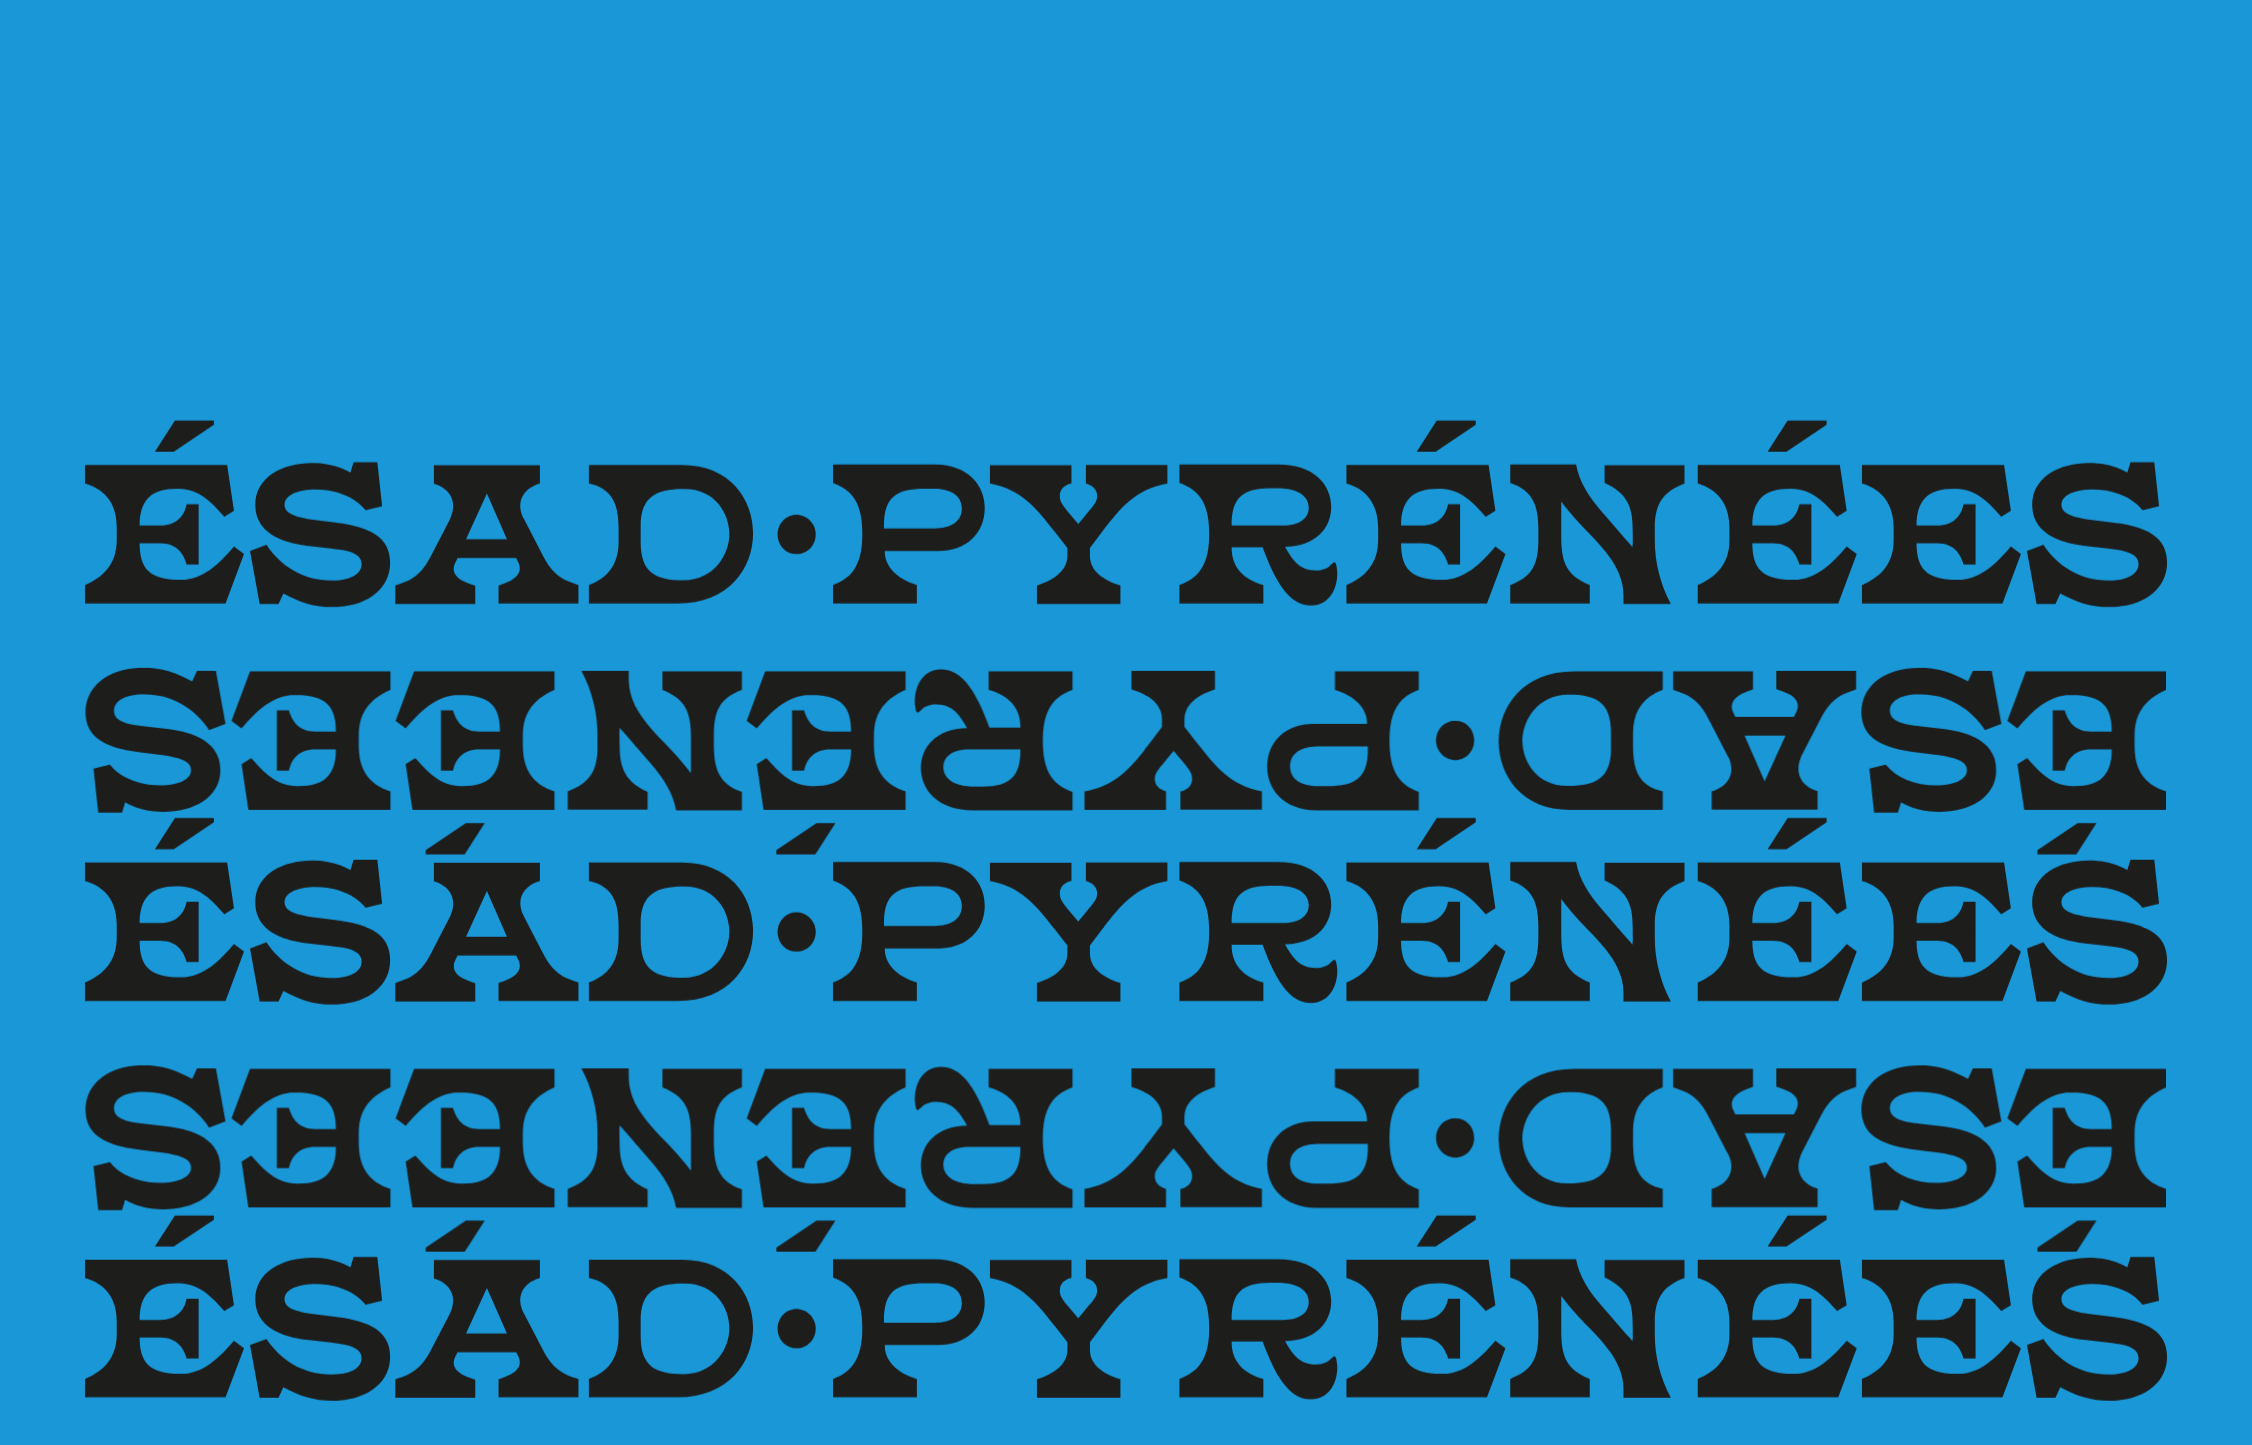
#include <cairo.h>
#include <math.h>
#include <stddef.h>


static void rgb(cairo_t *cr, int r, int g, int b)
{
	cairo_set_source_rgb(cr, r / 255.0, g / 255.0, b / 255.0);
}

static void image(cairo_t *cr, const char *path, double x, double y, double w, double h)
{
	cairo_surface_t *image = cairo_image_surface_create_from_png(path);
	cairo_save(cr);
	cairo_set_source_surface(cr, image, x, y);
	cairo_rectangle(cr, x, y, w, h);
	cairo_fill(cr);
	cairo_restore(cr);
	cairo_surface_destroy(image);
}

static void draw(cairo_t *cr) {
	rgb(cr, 25, 151, 215);
	cairo_paint(cr);
	image(cr, "image0.png", 85, 419, 2082, 189);
	image(cr, "image2.png", 85, 817, 2082, 188);
	image(cr, "image1.png", 85, 667, 2081, 188);
	image(cr, "image4.png", 85, 1214, 2082, 187);
	image(cr, "image3.png", 85, 1065, 2081, 187);
}

int main(void) {
	cairo_surface_t *surface = cairo_image_surface_create(CAIRO_FORMAT_RGB24, 2252, 1445);
	cairo_t *cr = cairo_create(surface);
	cairo_font_options_t *options = cairo_font_options_create();
	cairo_font_options_set_hint_metrics(options, CAIRO_HINT_METRICS_OFF);
	cairo_font_options_set_hint_style(options, CAIRO_HINT_STYLE_NONE);
	cairo_set_font_options(cr, options);
	cairo_set_miter_limit(cr, 4);
	draw(cr);
	cairo_surface_write_to_png(surface, "render.png");
	cairo_font_options_destroy(options);
	cairo_destroy(cr);
	cairo_surface_destroy(surface);
	return 0;
}
